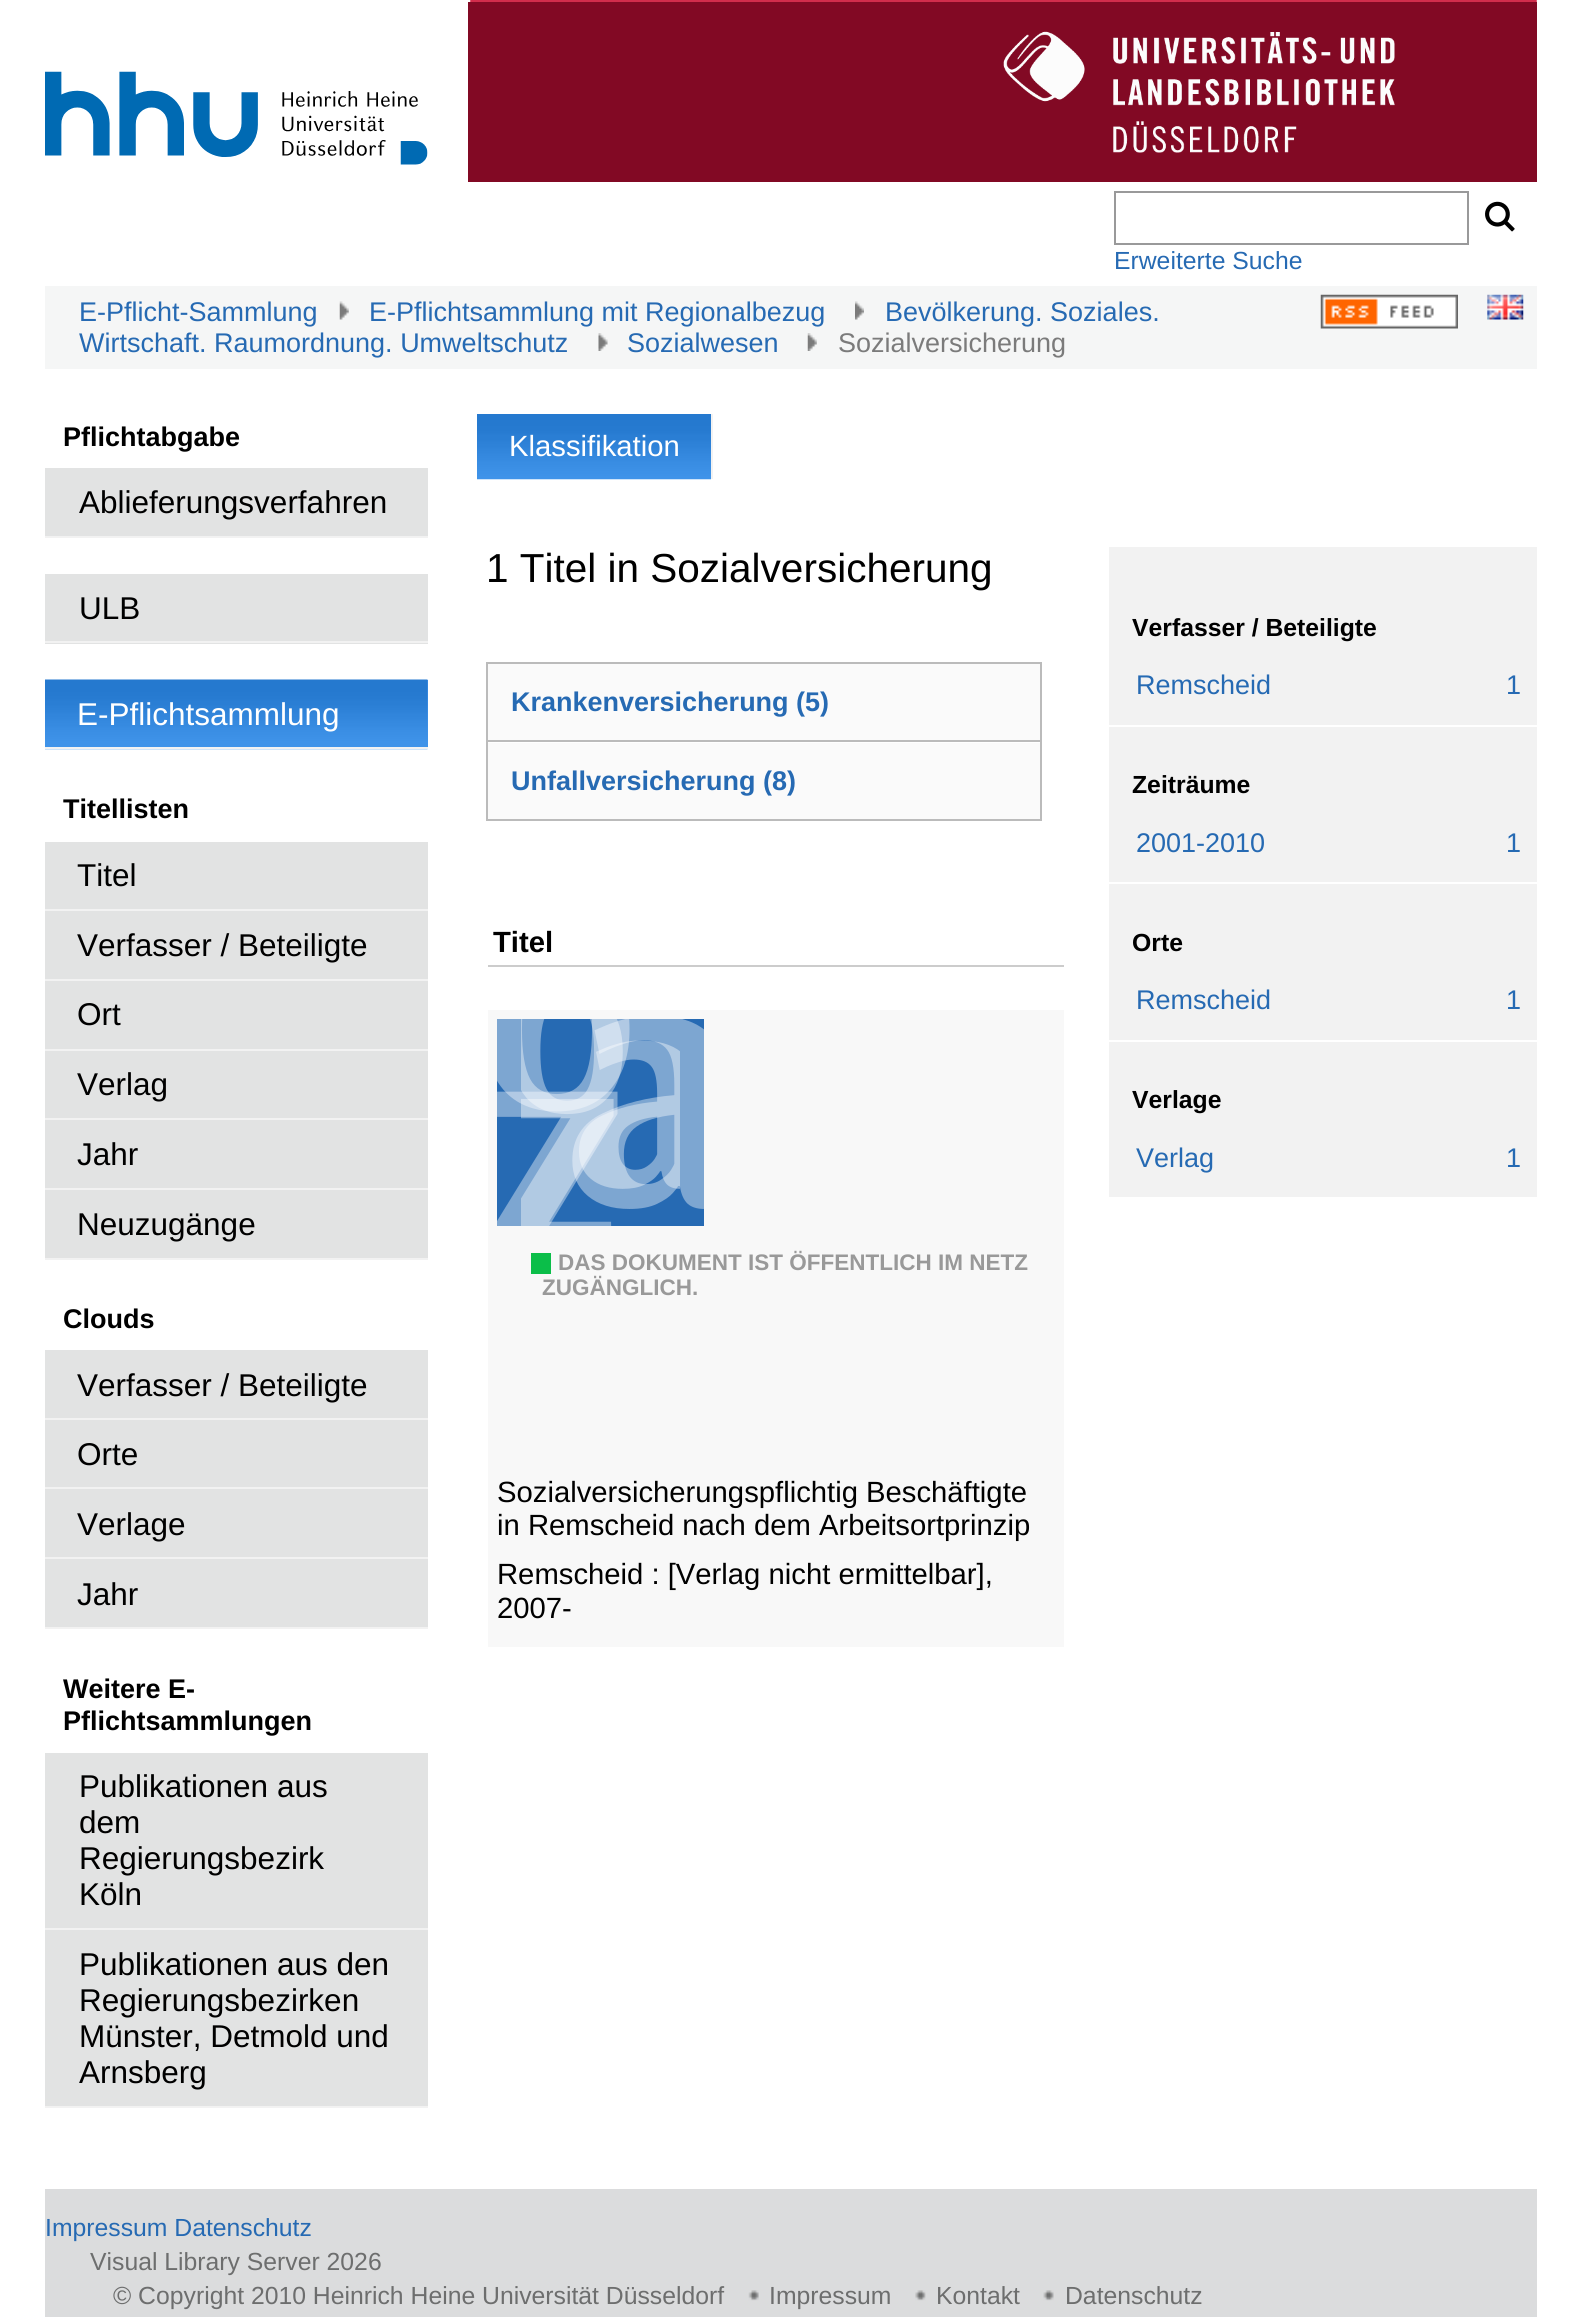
#include <cairo.h>
#include <math.h>
#include <stddef.h>


static void rgb(cairo_t *cr, int r, int g, int b)
{
	cairo_set_source_rgb(cr, r / 255.0, g / 255.0, b / 255.0);
}

static void face(cairo_t *cr, const char *family, double size, int italic, int bold)
{
	cairo_select_font_face(cr, family, italic ? CAIRO_FONT_SLANT_ITALIC : CAIRO_FONT_SLANT_NORMAL,
		bold ? CAIRO_FONT_WEIGHT_BOLD : CAIRO_FONT_WEIGHT_NORMAL);
	cairo_set_font_size(cr, size);
}

static void label(cairo_t *cr, double x, double y, const char *s)
{
	cairo_move_to(cr, x, y);
	cairo_show_text(cr, s);
}

static void rect(cairo_t *cr, double x, double y, double w, double h)
{
	cairo_rectangle(cr, x, y, w, h);
	cairo_fill(cr);
}

static void image(cairo_t *cr, const char *path, double x, double y, double w, double h)
{
	cairo_surface_t *image = cairo_image_surface_create_from_png(path);
	cairo_save(cr);
	cairo_set_source_surface(cr, image, x, y);
	cairo_rectangle(cr, x, y, w, h);
	cairo_fill(cr);
	cairo_restore(cr);
	cairo_surface_destroy(image);
}

static void draw(cairo_t *cr) {
	rgb(cr, 255, 255, 255);
	cairo_paint(cr);
	image(cr, "image0.png", 470, 0, 1067, 2);
	image(cr, "image1.png", 45, 71, 383, 94);
	rgb(cr, 130, 9, 36);
	rect(cr, 468, 2, 1069, 180);
	image(cr, "image2.png", 1003, 31, 392, 122);
	cairo_rectangle(cr, 1115, 192, 353, 52);
	rgb(cr, 153, 153, 154);
	cairo_stroke(cr);
	image(cr, "image3.png", 1485, 201, 30, 31);
	face(cr, "Liberation Sans", 24.75, 0, 0);
	rgb(cr, 38, 106, 179);
	label(cr, 1114, 269, "Erweiterte Suche");
	rgb(cr, 245, 246, 246);
	rect(cr, 45, 286, 1492, 83);
	face(cr, "Liberation Sans", 27, 0, 0);
	rgb(cr, 38, 106, 179);
	label(cr, 79, 321, "E-Pflicht-Sammlung");
	image(cr, "image4.png", 339, 301, 10, 19);
	label(cr, 369, 321, "E-Pflichtsammlung mit Regionalbezug");
	image(cr, "image5.png", 855, 301, 9, 19);
	label(cr, 885, 321, "Bevölkerung. Soziales.");
	label(cr, 79, 352, "Wirtschaft. Raumordnung. Umweltschutz");
	image(cr, "image6.png", 598, 333, 10, 18);
	label(cr, 627, 352, "Sozialwesen");
	image(cr, "image7.png", 807, 333, 10, 18);
	rgb(cr, 123, 123, 123);
	label(cr, 838, 352, "Sozialversicherung");
	image(cr, "image8.png", 1320, 294, 138, 35);
	image(cr, "image9.png", 1487, 294, 37, 26);
	face(cr, "Liberation Sans", 27, 0, 1);
	rgb(cr, 0, 0, 0);
	label(cr, 63, 446, "Pflichtabgabe");
	rgb(cr, 226, 227, 227);
	rect(cr, 45, 468, 383, 68);
	rgb(cr, 242, 242, 242);
	rect(cr, 45, 536, 383, 2);
	face(cr, "Liberation Sans", 31.5, 0, 0);
	rgb(cr, 0, 0, 0);
	label(cr, 79, 513, "Ablieferungsverfahren");
	rgb(cr, 226, 227, 227);
	rect(cr, 45, 574, 383, 70);
	rgb(cr, 242, 242, 242);
	rect(cr, 45, 641, 383, 2);
	rgb(cr, 0, 0, 0);
	label(cr, 79, 619, "ULB");
	rgb(cr, 64, 147, 234);
	rect(cr, 427, 680, 1, 67);
	image(cr, "image10.png", 45, 679, 383, 71);
	rgb(cr, 242, 242, 242);
	rect(cr, 45, 747, 383, 2);
	rgb(cr, 255, 255, 255);
	label(cr, 77, 725, "E-Pflichtsammlung");
	face(cr, "Liberation Sans", 27, 0, 1);
	rgb(cr, 0, 0, 0);
	label(cr, 63, 818, "Titellisten");
	rgb(cr, 226, 227, 227);
	rect(cr, 45, 842, 383, 67);
	rgb(cr, 242, 242, 242);
	rect(cr, 45, 909, 383, 2);
	face(cr, "Liberation Sans", 31.5, 0, 0);
	rgb(cr, 0, 0, 0);
	label(cr, 77, 886, "Titel");
	rgb(cr, 226, 227, 227);
	rect(cr, 45, 911, 383, 68);
	rgb(cr, 242, 242, 242);
	rect(cr, 45, 979, 383, 2);
	rgb(cr, 0, 0, 0);
	label(cr, 77, 956, "Verfasser / Beteiligte");
	rgb(cr, 226, 227, 227);
	rect(cr, 45, 981, 383, 68);
	rgb(cr, 242, 242, 242);
	rect(cr, 45, 1049, 383, 2);
	rgb(cr, 0, 0, 0);
	label(cr, 77, 1025, "Ort");
	rgb(cr, 226, 227, 227);
	rect(cr, 45, 1051, 383, 137);
	rgb(cr, 242, 242, 242);
	rect(cr, 45, 1118, 383, 2);
	rgb(cr, 0, 0, 0);
	label(cr, 77, 1095, "Verlag");
	rgb(cr, 242, 242, 242);
	rect(cr, 45, 1188, 383, 2);
	rgb(cr, 0, 0, 0);
	label(cr, 77, 1165, "Jahr");
	rgb(cr, 226, 227, 227);
	rect(cr, 45, 1190, 383, 68);
	rgb(cr, 242, 242, 242);
	rect(cr, 45, 1258, 383, 2);
	rgb(cr, 0, 0, 0);
	label(cr, 77, 1235, "Neuzugänge");
	face(cr, "Liberation Sans", 27, 0, 1);
	label(cr, 63, 1328, "Clouds");
	rgb(cr, 226, 227, 227);
	rect(cr, 45, 1350, 383, 68);
	rgb(cr, 242, 242, 242);
	rect(cr, 45, 1418, 383, 2);
	face(cr, "Liberation Sans", 31.5, 0, 0);
	rgb(cr, 0, 0, 0);
	label(cr, 77, 1396, "Verfasser / Beteiligte");
	rgb(cr, 226, 227, 227);
	rect(cr, 45, 1420, 383, 137);
	rgb(cr, 242, 242, 242);
	rect(cr, 45, 1487, 383, 2);
	rgb(cr, 0, 0, 0);
	label(cr, 77, 1465, "Orte");
	rgb(cr, 242, 242, 242);
	rect(cr, 45, 1557, 383, 2);
	rgb(cr, 0, 0, 0);
	label(cr, 77, 1535, "Verlage");
	rgb(cr, 226, 227, 227);
	rect(cr, 45, 1559, 383, 68);
	rgb(cr, 242, 242, 242);
	rect(cr, 45, 1627, 383, 2);
	rgb(cr, 0, 0, 0);
	label(cr, 77, 1605, "Jahr");
	face(cr, "Liberation Sans", 27, 0, 1);
	label(cr, 63, 1698, "Weitere E-");
	label(cr, 63, 1730, "Pflichtsammlungen");
	rgb(cr, 226, 227, 227);
	rect(cr, 45, 1753, 383, 353);
	rgb(cr, 242, 242, 242);
	rect(cr, 45, 1928, 383, 2);
	face(cr, "Liberation Sans", 31.5, 0, 0);
	rgb(cr, 0, 0, 0);
	label(cr, 79, 1797, "Publikationen aus");
	label(cr, 79, 1833, "dem");
	label(cr, 79, 1869, "Regierungsbezirk");
	label(cr, 79, 1905, "Köln");
	rgb(cr, 242, 242, 242);
	rect(cr, 45, 2106, 383, 2);
	rgb(cr, 0, 0, 0);
	label(cr, 79, 1975, "Publikationen aus den");
	label(cr, 79, 2011, "Regierungsbezirken");
	label(cr, 79, 2047, "Münster, Detmold und");
	label(cr, 79, 2083, "Arnsberg");
	rgb(cr, 242, 242, 242);
	rect(cr, 711, 414, 2, 65);
	image(cr, "image11.png", 477, 414, 234, 66);
	face(cr, "Liberation Sans", 29.25, 0, 0);
	rgb(cr, 255, 255, 255);
	label(cr, 509, 456, "Klassifikation");
	face(cr, "Liberation Sans", 40.5, 0, 0);
	rgb(cr, 0, 0, 0);
	label(cr, 486, 582, "1 Titel in Sozialversicherung");
	rgb(cr, 187, 187, 187);
	rect(cr, 1040, 662, 2, 159);
	rect(cr, 486, 819, 556, 2);
	rect(cr, 486, 662, 554, 2);
	rect(cr, 486, 662, 2, 78);
	rgb(cr, 250, 250, 250);
	rect(cr, 488, 664, 552, 76);
	face(cr, "Liberation Sans", 27, 0, 1);
	rgb(cr, 38, 106, 179);
	label(cr, 511, 711, "Krankenversicherung (5)");
	rgb(cr, 187, 187, 187);
	rect(cr, 486, 740, 554, 2);
	rect(cr, 486, 740, 2, 79);
	rgb(cr, 250, 250, 250);
	rect(cr, 488, 743, 552, 76);
	rgb(cr, 38, 106, 179);
	label(cr, 511, 790, "Unfallversicherung (8)");
	rgb(cr, 242, 242, 242);
	rect(cr, 1109, 547, 428, 650);
	face(cr, "Liberation Sans", 24.75, 0, 1);
	rgb(cr, 0, 0, 0);
	label(cr, 1132, 636, "Verfasser / Beteiligte");
	rgb(cr, 255, 255, 255);
	rect(cr, 1109, 725, 428, 2);
	face(cr, "Liberation Sans", 27, 0, 0);
	rgb(cr, 38, 106, 179);
	label(cr, 1136, 694, "Remscheid");
	label(cr, 1506, 694, "1");
	face(cr, "Liberation Sans", 24.75, 0, 1);
	rgb(cr, 0, 0, 0);
	label(cr, 1132, 793, "Zeiträume");
	rgb(cr, 255, 255, 255);
	rect(cr, 1109, 882, 428, 2);
	face(cr, "Liberation Sans", 27, 0, 0);
	rgb(cr, 38, 106, 179);
	label(cr, 1136, 852, "2001-2010");
	label(cr, 1506, 852, "1");
	face(cr, "Liberation Sans", 24.75, 0, 1);
	rgb(cr, 0, 0, 0);
	label(cr, 1132, 951, "Orte");
	rgb(cr, 255, 255, 255);
	rect(cr, 1109, 1040, 428, 2);
	face(cr, "Liberation Sans", 27, 0, 0);
	rgb(cr, 38, 106, 179);
	label(cr, 1136, 1009, "Remscheid");
	label(cr, 1506, 1009, "1");
	face(cr, "Liberation Sans", 24.75, 0, 1);
	rgb(cr, 0, 0, 0);
	label(cr, 1132, 1108, "Verlage");
	face(cr, "Liberation Sans", 27, 0, 0);
	rgb(cr, 38, 106, 179);
	label(cr, 1136, 1167, "Verlag");
	label(cr, 1506, 1167, "1");
	rgb(cr, 204, 204, 204);
	rect(cr, 488, 965, 576, 2);
	face(cr, "Liberation Sans", 29.25, 0, 1);
	rgb(cr, 0, 0, 0);
	label(cr, 493, 952, "Titel");
	rgb(cr, 248, 248, 248);
	rect(cr, 488, 1010, 576, 637);
	rgb(cr, 38, 106, 179);
	rect(cr, 497, 1019, 207, 207);
	image(cr, "image12.png", 497, 1019, 207, 207);
	image(cr, "image13.png", 521, 1019, 159, 207);
	rgb(cr, 11, 190, 73);
	rect(cr, 531, 1253, 20, 21);
	face(cr, "Liberation Sans", 22.5, 0, 1);
	rgb(cr, 153, 153, 153);
	label(cr, 558, 1270, "DAS DOKUMENT IST ÖFFENTLICH IM NETZ");
	label(cr, 542, 1295, "ZUGÄNGLICH.");
	face(cr, "Liberation Sans", 29.25, 0, 0);
	rgb(cr, 0, 0, 0);
	label(cr, 497, 1502, "Sozialversicherungspflichtig Beschäftigte");
	label(cr, 497, 1535, "in Remscheid nach dem Arbeitsortprinzip");
	label(cr, 497, 1584, "Remscheid : [Verlag nicht ermittelbar],");
	label(cr, 497, 1618, "2007-");
	rgb(cr, 219, 220, 221);
	rect(cr, 45, 2189, 1492, 128);
	face(cr, "Liberation Sans", 24.75, 0, 0);
	rgb(cr, 38, 106, 179);
	label(cr, 45, 2236, "Impressum Datenschutz");
	rgb(cr, 109, 110, 110);
	label(cr, 90, 2270, "Visual Library Server 2026");
	label(cr, 113, 2304, "© Copyright 2010 Heinrich Heine Universität Düsseldorf");
	image(cr, "image14.png", 748, 2290, 11, 11);
	label(cr, 769, 2304, "Impressum");
	image(cr, "image15.png", 915, 2290, 11, 11);
	label(cr, 936, 2304, "Kontakt");
	image(cr, "image16.png", 1043, 2290, 11, 11);
	label(cr, 1065, 2304, "Datenschutz");
}

int main(void) {
	cairo_surface_t *surface = cairo_image_surface_create(CAIRO_FORMAT_RGB24, 1580, 2317);
	cairo_t *cr = cairo_create(surface);
	cairo_font_options_t *options = cairo_font_options_create();
	cairo_font_options_set_hint_metrics(options, CAIRO_HINT_METRICS_OFF);
	cairo_font_options_set_hint_style(options, CAIRO_HINT_STYLE_NONE);
	cairo_set_font_options(cr, options);
	cairo_set_miter_limit(cr, 4);
	draw(cr);
	cairo_surface_write_to_png(surface, "render.png");
	cairo_font_options_destroy(options);
	cairo_destroy(cr);
	cairo_surface_destroy(surface);
	return 0;
}
